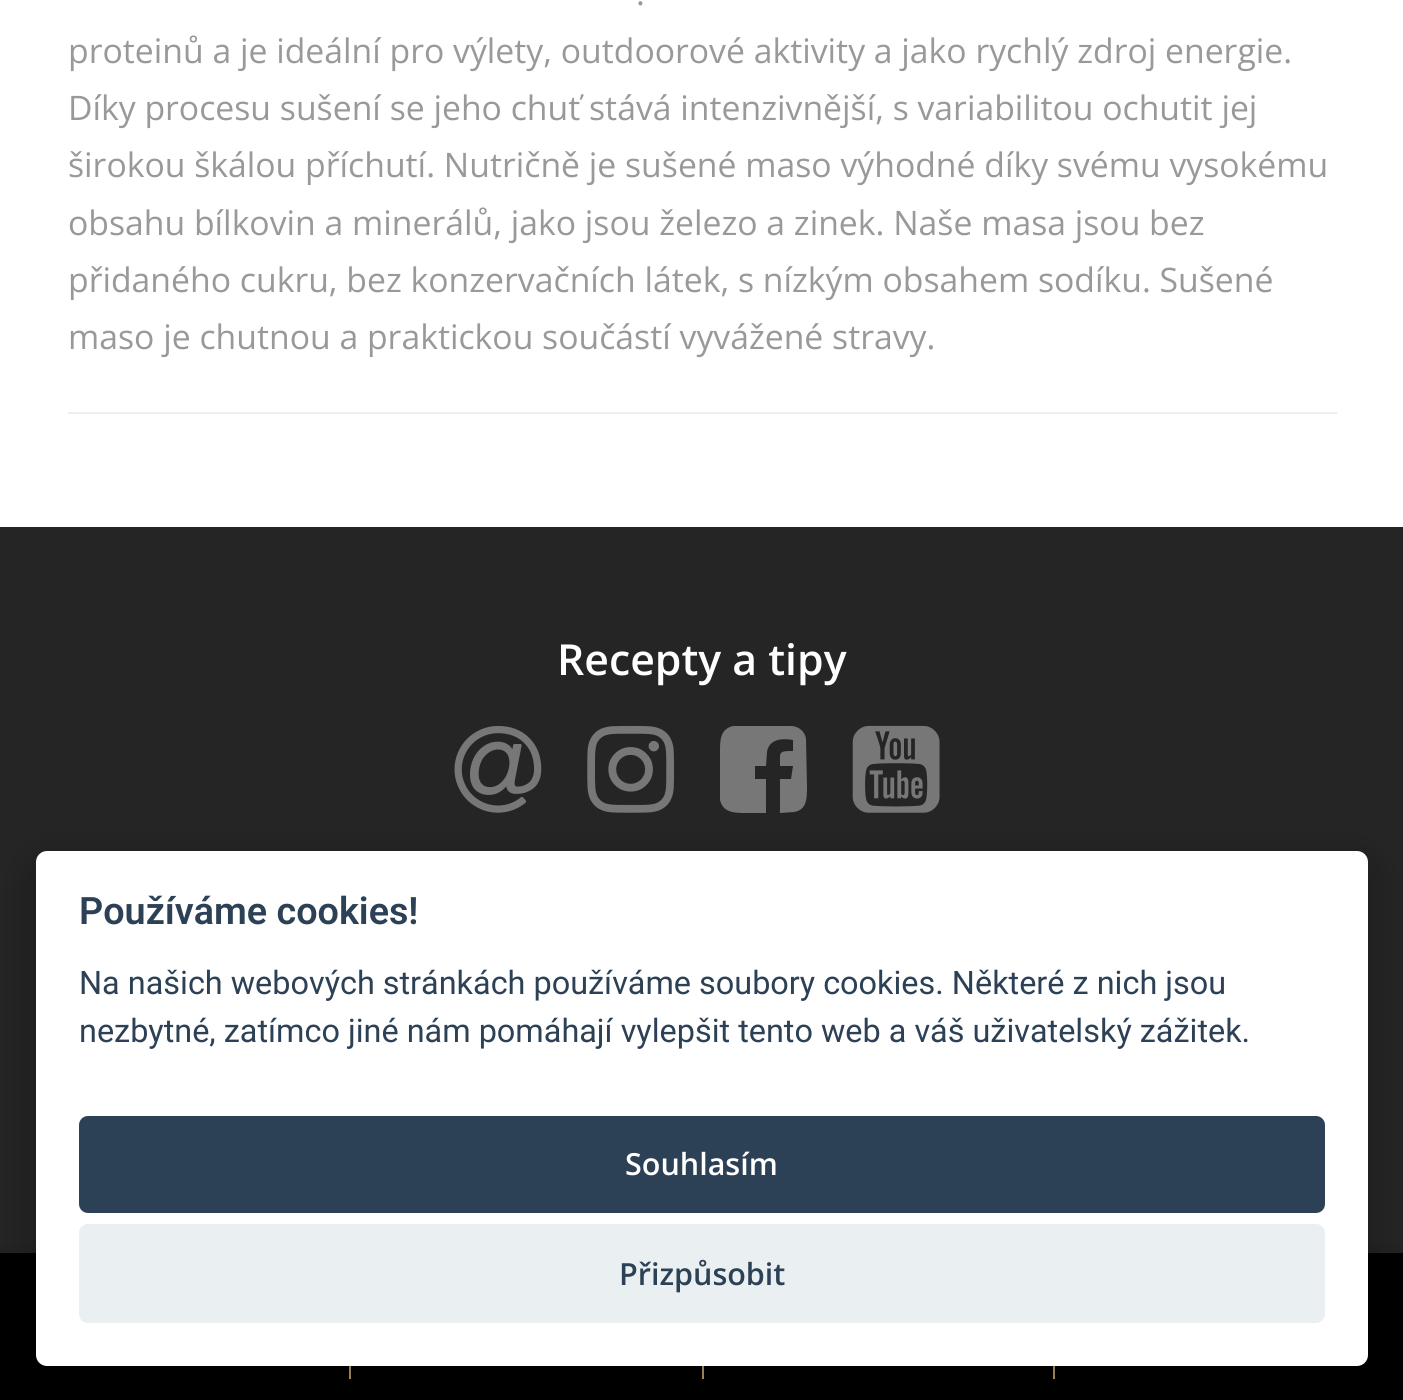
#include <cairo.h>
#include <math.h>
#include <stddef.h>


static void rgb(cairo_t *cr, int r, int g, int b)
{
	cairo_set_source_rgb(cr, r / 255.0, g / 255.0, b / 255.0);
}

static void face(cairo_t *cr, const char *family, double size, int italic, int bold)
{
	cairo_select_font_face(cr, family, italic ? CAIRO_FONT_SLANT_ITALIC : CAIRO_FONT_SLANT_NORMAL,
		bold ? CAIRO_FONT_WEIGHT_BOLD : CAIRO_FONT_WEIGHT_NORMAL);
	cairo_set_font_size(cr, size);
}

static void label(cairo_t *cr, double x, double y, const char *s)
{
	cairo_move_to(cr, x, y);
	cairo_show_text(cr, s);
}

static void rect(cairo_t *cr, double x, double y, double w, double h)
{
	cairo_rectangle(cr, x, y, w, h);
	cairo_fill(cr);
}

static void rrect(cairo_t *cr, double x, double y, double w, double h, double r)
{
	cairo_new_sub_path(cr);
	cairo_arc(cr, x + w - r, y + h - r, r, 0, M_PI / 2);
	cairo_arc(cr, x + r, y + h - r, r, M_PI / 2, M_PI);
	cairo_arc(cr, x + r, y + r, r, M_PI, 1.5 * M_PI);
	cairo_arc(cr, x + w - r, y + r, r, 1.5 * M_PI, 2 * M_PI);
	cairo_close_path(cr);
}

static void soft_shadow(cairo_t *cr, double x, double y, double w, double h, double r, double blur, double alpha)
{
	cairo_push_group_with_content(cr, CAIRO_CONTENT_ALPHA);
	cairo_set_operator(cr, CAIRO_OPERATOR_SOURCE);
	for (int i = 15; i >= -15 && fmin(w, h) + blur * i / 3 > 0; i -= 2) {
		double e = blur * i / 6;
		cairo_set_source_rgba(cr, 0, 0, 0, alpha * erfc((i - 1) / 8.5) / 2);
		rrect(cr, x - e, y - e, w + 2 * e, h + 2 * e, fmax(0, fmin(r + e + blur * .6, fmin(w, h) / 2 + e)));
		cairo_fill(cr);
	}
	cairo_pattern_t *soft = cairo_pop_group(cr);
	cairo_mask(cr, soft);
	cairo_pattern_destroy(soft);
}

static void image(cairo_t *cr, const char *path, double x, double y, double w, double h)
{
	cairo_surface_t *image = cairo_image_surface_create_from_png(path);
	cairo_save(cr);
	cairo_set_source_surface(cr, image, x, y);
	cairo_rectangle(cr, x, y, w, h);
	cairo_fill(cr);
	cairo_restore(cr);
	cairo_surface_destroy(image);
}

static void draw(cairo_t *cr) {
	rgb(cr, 255, 255, 255);
	cairo_paint(cr);
	face(cr, "Open Sans", 33.75, 0, 0);
	rgb(cr, 153, 153, 153);
	label(cr, 636, 5, ".");
	label(cr, 68, 63, "proteinů a je ideální pro výlety, outdoorové aktivity a jako rychlý zdroj energie.");
	label(cr, 68, 120, "Díky procesu sušení se jeho chuť stává intenzivnější, s variabilitou ochutit jej");
	label(cr, 68, 177, "širokou škálou příchutí. Nutričně je sušené maso výhodné díky svému vysokému");
	label(cr, 68, 235, "obsahu bílkovin a minerálů, jako jsou železo a zinek. Naše masa jsou bez");
	label(cr, 68, 292, "přidaného cukru, bez konzervačních látek, s nízkým obsahem sodíku. Sušené");
	label(cr, 68, 349, "maso je chutnou a praktickou součástí vyvážené stravy.");
	rgb(cr, 238, 238, 238);
	rect(cr, 68, 412, 1269, 2);
	rgb(cr, 37, 37, 37);
	rect(cr, 0, 527, 1403, 726);
	face(cr, "Open Sans SemiBold", 42.75, 0, 0);
	rgb(cr, 255, 255, 255);
	label(cr, 557, 675, "Recepty a tipy");
	image(cr, "image0.png", 454, 726, 88, 87);
	image(cr, "image1.png", 587, 725, 87, 88);
	rgb(cr, 119, 119, 119);
	cairo_new_path(cr);
	cairo_move_to(cr, 791, 726);
	cairo_curve_to(cr, 798, 726, 805, 731, 806, 739);
	cairo_line_to(cr, 807, 787);
	cairo_curve_to(cr, 807, 798, 807, 810, 794, 812);
	cairo_line_to(cr, 780, 813);
	cairo_line_to(cr, 780, 779);
	cairo_line_to(cr, 791, 779);
	cairo_line_to(cr, 793, 766);
	cairo_line_to(cr, 780, 766);
	cairo_curve_to(cr, 780, 752, 778, 751, 793, 751);
	cairo_line_to(cr, 793, 740);
	cairo_curve_to(cr, 782, 738, 769, 739, 767, 752);
	cairo_line_to(cr, 766, 766);
	cairo_line_to(cr, 755, 766);
	cairo_line_to(cr, 755, 779);
	cairo_line_to(cr, 766, 779);
	cairo_line_to(cr, 766, 813);
	cairo_line_to(cr, 746, 813);
	cairo_curve_to(cr, 735, 813, 723, 813, 720, 800);
	cairo_line_to(cr, 720, 751);
	cairo_curve_to(cr, 720, 741, 720, 729, 733, 726);
	cairo_close_path(cr);
	cairo_fill(cr);
	image(cr, "image2.png", 852, 725, 88, 88);
	rgb(cr, 0, 0, 0);
	soft_shadow(cr, 0, 1249, 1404, 148, 0, 5.5, 0.1);
	rgb(cr, 0, 0, 0);
	rect(cr, 0, 1253, 1403, 147);
	rgb(cr, 182, 154, 103);
	rect(cr, 349, 1366, 2, 13);
	rect(cr, 702, 1366, 2, 13);
	rect(cr, 1053, 1366, 2, 13);
	rgb(cr, 2, 2, 3);
	soft_shadow(cr, 36, 864, 1332, 515, 11, 21, 0.28);
	rgb(cr, 255, 255, 255);
	rrect(cr, 36, 851, 1332, 515, 11);
	cairo_fill(cr);
	face(cr, "Roboto SemiBold", 37.75, 0, 0);
	rgb(cr, 45, 65, 86);
	label(cr, 79, 924, "Používáme cookies!");
	face(cr, "Roboto", 32.4, 0, 0);
	label(cr, 79, 994, "Na našich webových stránkách používáme soubory cookies. Některé z nich jsou");
	label(cr, 79, 1042, "nezbytné, zatímco jiné nám pomáhají vylepšit tento web a váš uživatelský zážitek.");
	rrect(cr, 79, 1116, 1246, 97, 9);
	cairo_fill(cr);
	face(cr, "Open Sans SemiBold", 30.5, 0, 0);
	rgb(cr, 255, 255, 255);
	label(cr, 625, 1175, "Souhlasím");
	rgb(cr, 234, 239, 242);
	rrect(cr, 79, 1224, 1246, 99, 9);
	cairo_fill(cr);
	rgb(cr, 45, 65, 86);
	label(cr, 619, 1285, "Přizpůsobit");
}

int main(void) {
	cairo_surface_t *surface = cairo_image_surface_create(CAIRO_FORMAT_RGB24, 1403, 1400);
	cairo_t *cr = cairo_create(surface);
	cairo_font_options_t *options = cairo_font_options_create();
	cairo_font_options_set_hint_metrics(options, CAIRO_HINT_METRICS_OFF);
	cairo_font_options_set_hint_style(options, CAIRO_HINT_STYLE_NONE);
	cairo_set_font_options(cr, options);
	cairo_set_miter_limit(cr, 4);
	draw(cr);
	cairo_surface_write_to_png(surface, "render.png");
	cairo_font_options_destroy(options);
	cairo_destroy(cr);
	cairo_surface_destroy(surface);
	return 0;
}
